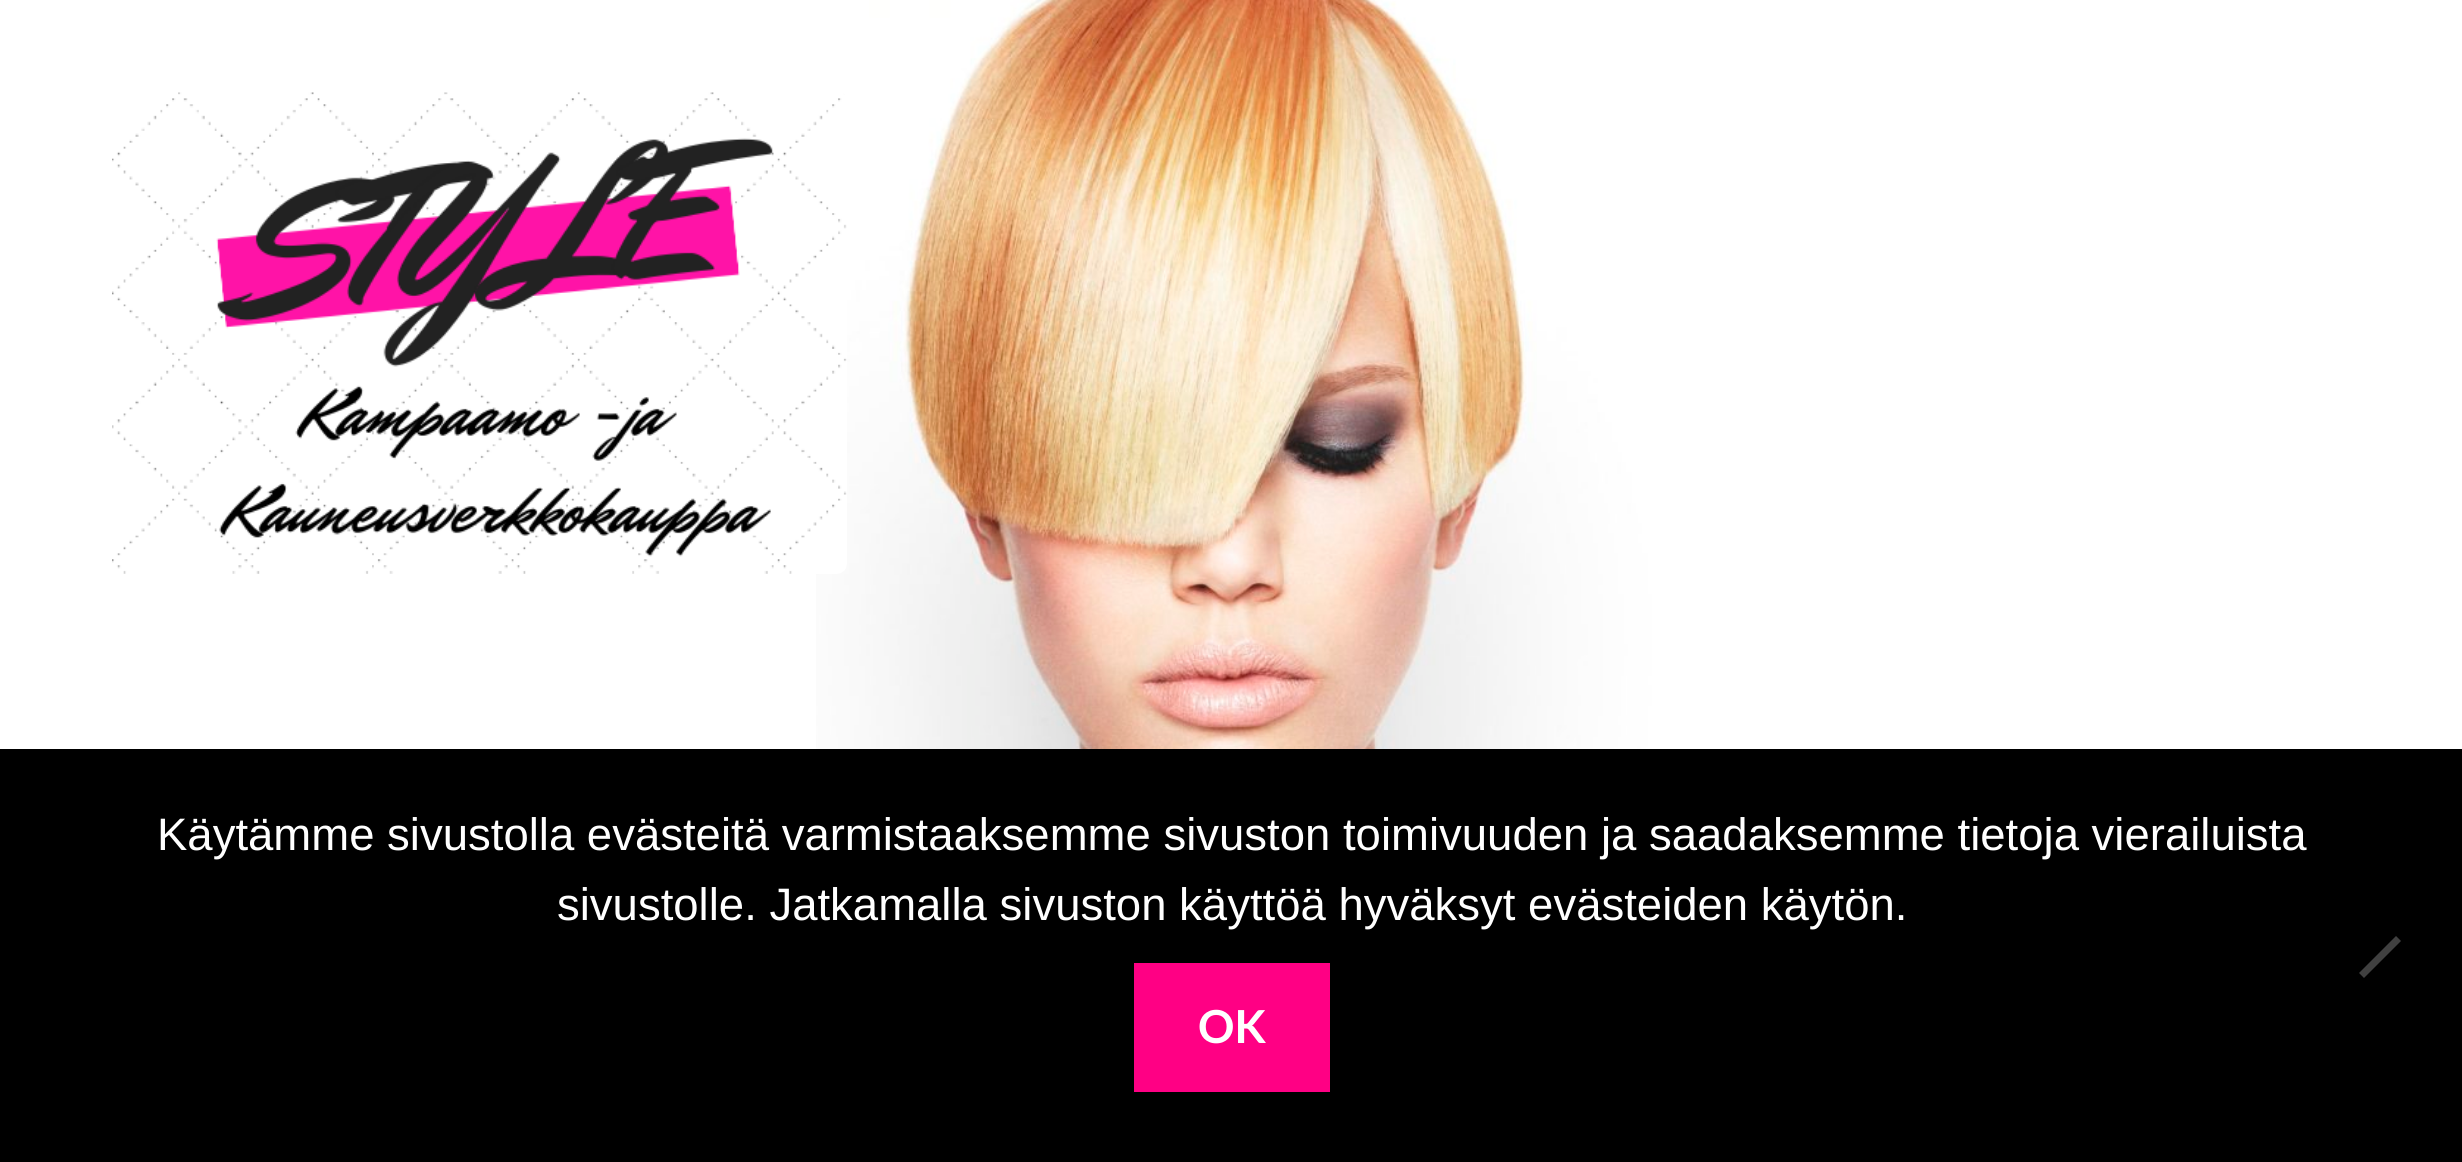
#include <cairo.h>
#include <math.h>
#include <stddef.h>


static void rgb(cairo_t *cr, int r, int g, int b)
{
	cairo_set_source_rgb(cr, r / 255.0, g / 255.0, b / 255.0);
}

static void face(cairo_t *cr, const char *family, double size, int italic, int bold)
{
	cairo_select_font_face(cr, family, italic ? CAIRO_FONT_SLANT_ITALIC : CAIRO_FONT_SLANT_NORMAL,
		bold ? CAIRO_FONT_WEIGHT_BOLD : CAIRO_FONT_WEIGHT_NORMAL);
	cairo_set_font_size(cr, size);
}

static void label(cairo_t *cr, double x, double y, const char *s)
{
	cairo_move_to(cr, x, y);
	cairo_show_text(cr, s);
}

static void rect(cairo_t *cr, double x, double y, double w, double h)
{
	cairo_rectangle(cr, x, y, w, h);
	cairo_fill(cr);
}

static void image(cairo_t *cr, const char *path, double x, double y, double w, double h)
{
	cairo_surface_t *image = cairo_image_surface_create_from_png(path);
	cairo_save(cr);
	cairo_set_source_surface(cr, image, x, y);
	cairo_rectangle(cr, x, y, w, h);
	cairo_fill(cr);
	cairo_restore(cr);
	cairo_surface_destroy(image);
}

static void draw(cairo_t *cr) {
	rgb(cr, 255, 255, 255);
	cairo_paint(cr);
	image(cr, "image0.png", 816, 0, 911, 749);
	image(cr, "image1.png", 112, 92, 735, 482);
	rgb(cr, 0, 0, 0);
	rect(cr, 0, 749, 2462, 413);
	face(cr, "Liberation Sans", 45.5, 0, 0);
	rgb(cr, 255, 255, 255);
	label(cr, 157, 850, "Käytämme sivustolla evästeitä varmistaaksemme sivuston toimivuuden ja saadaksemme tietoja vierailuista");
	label(cr, 557, 920, "sivustolle. Jatkamalla sivuston käyttöä hyväksyt evästeiden käytön.");
	rgb(cr, 64, 64, 64);
	cairo_new_path(cr);
	cairo_move_to(cr, 2396, 936);
	cairo_line_to(cr, 2401, 941);
	cairo_line_to(cr, 2364, 978);
	cairo_line_to(cr, 2359, 973);
	cairo_close_path(cr);
	cairo_fill(cr);
	rgb(cr, 255, 0, 132);
	rect(cr, 1134, 963, 196, 129);
	face(cr, "Lato", 45.5, 0, 1);
	rgb(cr, 255, 255, 255);
	label(cr, 1198, 1043, "OK");
}

int main(void) {
	cairo_surface_t *surface = cairo_image_surface_create(CAIRO_FORMAT_RGB24, 2462, 1162);
	cairo_t *cr = cairo_create(surface);
	cairo_font_options_t *options = cairo_font_options_create();
	cairo_font_options_set_hint_metrics(options, CAIRO_HINT_METRICS_OFF);
	cairo_font_options_set_hint_style(options, CAIRO_HINT_STYLE_NONE);
	cairo_set_font_options(cr, options);
	cairo_set_miter_limit(cr, 4);
	draw(cr);
	cairo_surface_write_to_png(surface, "render.png");
	cairo_font_options_destroy(options);
	cairo_destroy(cr);
	cairo_surface_destroy(surface);
	return 0;
}
